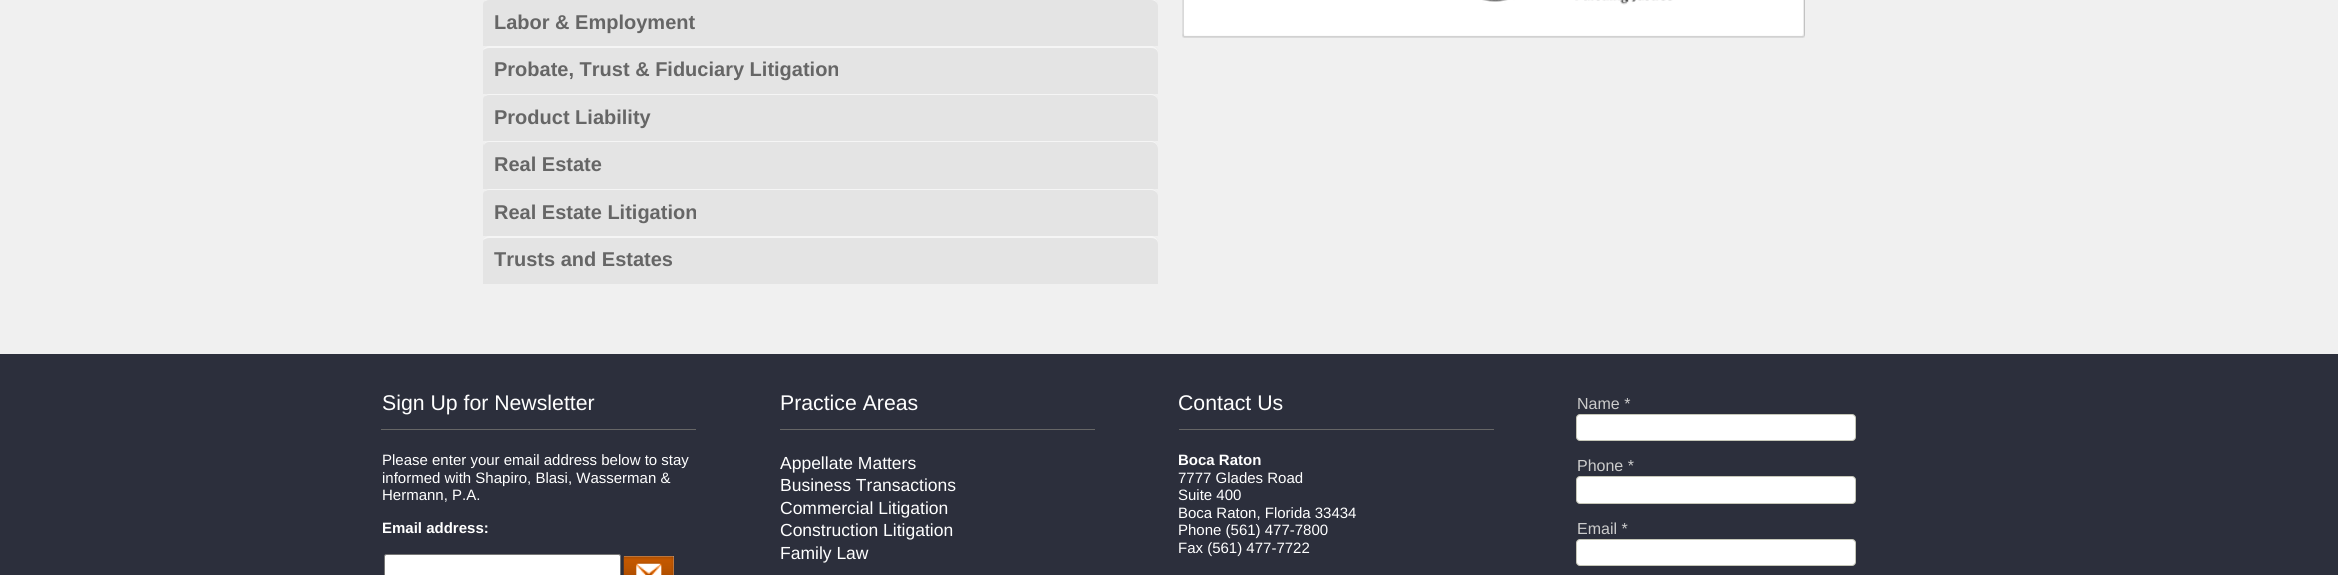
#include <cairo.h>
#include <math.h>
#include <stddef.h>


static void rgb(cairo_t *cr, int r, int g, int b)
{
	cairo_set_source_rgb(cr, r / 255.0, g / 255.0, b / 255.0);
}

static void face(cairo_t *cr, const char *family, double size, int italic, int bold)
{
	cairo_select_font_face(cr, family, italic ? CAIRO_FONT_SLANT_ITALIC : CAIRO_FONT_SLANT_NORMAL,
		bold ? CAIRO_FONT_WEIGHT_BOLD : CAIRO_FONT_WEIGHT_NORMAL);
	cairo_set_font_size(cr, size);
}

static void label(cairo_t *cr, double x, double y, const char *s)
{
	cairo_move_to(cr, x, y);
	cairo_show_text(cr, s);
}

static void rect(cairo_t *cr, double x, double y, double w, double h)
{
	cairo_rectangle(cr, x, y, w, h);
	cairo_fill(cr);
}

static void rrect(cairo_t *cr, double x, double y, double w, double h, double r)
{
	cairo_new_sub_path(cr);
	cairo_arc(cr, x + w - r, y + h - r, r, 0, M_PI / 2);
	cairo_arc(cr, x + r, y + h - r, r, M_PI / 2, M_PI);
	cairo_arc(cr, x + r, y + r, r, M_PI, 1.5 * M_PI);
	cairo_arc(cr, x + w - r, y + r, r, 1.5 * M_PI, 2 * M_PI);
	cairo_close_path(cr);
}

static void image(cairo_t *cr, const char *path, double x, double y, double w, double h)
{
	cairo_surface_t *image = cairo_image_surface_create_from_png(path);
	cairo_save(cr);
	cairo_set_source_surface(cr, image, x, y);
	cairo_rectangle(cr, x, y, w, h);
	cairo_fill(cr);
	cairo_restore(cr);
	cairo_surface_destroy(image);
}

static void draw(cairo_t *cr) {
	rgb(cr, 240, 240, 240);
	cairo_paint(cr);
	rgb(cr, 228, 228, 228);
	cairo_new_path(cr);
	cairo_move_to(cr, 489, -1);
	cairo_line_to(cr, 1152, -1);
	cairo_curve_to(cr, 1155.5, -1, 1158, 1.5, 1158, 5);
	cairo_line_to(cr, 1158, 46);
	cairo_line_to(cr, 483, 46);
	cairo_line_to(cr, 483, 5);
	cairo_curve_to(cr, 483, 1.5, 485.5, -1, 489, -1);
	cairo_close_path(cr);
	cairo_fill(cr);
	cairo_set_source_rgba(cr, 1, 1, 1, 0.63);
	cairo_new_path(cr);
	cairo_move_to(cr, 489, 0);
	cairo_line_to(cr, 1151, 0);
	cairo_curve_to(cr, 1155, 0, 1158, 3, 1158, 6);
	cairo_line_to(cr, 1158, 5);
	cairo_curve_to(cr, 1158, 2, 1155, -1, 1152, -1);
	cairo_line_to(cr, 489, -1);
	cairo_curve_to(cr, 487, -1, 485, 0, 484, 2);
	cairo_curve_to(cr, 485, 1, 487, 0, 489, 0);
	cairo_close_path(cr);
	cairo_fill(cr);
	face(cr, "Liberation Sans", 20, 0, 1);
	rgb(cr, 102, 102, 102);
	label(cr, 494, 29, "Labor & Employment");
	rgb(cr, 228, 228, 228);
	cairo_new_path(cr);
	cairo_move_to(cr, 489, 46);
	cairo_line_to(cr, 1152, 46);
	cairo_curve_to(cr, 1155.5, 46, 1158, 48.5, 1158, 52);
	cairo_line_to(cr, 1158, 94);
	cairo_line_to(cr, 483, 94);
	cairo_line_to(cr, 483, 52);
	cairo_curve_to(cr, 483, 48.5, 485.5, 46, 489, 46);
	cairo_close_path(cr);
	cairo_fill(cr);
	cairo_set_source_rgba(cr, 1, 1, 1, 0.63);
	cairo_new_path(cr);
	cairo_move_to(cr, 489, 48);
	cairo_line_to(cr, 1151, 48);
	cairo_curve_to(cr, 1155, 48, 1158, 50, 1158, 54);
	cairo_line_to(cr, 1158, 52);
	cairo_curve_to(cr, 1158, 49, 1155, 46, 1152, 46);
	cairo_line_to(cr, 489, 46);
	cairo_curve_to(cr, 486, 46, 484, 48, 483, 50);
	cairo_curve_to(cr, 485, 49, 487, 48, 489, 48);
	cairo_close_path(cr);
	cairo_fill(cr);
	rgb(cr, 102, 102, 102);
	label(cr, 494, 76, "Probate, Trust & Fiduciary Litigation");
	rgb(cr, 228, 228, 228);
	cairo_new_path(cr);
	cairo_move_to(cr, 489, 94);
	cairo_line_to(cr, 1152, 94);
	cairo_curve_to(cr, 1155.5, 94, 1158, 96.5, 1158, 100);
	cairo_line_to(cr, 1158, 141);
	cairo_line_to(cr, 483, 141);
	cairo_line_to(cr, 483, 100);
	cairo_curve_to(cr, 483, 96.5, 485.5, 94, 489, 94);
	cairo_close_path(cr);
	cairo_fill(cr);
	cairo_set_source_rgba(cr, 1, 1, 1, 0.63);
	cairo_new_path(cr);
	cairo_move_to(cr, 489, 95);
	cairo_line_to(cr, 1151, 95);
	cairo_curve_to(cr, 1155, 95, 1158, 98, 1158, 101);
	cairo_line_to(cr, 1158, 100);
	cairo_curve_to(cr, 1158, 97, 1155, 94, 1152, 94);
	cairo_line_to(cr, 489, 94);
	cairo_curve_to(cr, 487, 94, 485, 95, 484, 97);
	cairo_curve_to(cr, 485, 96, 487, 95, 489, 95);
	cairo_close_path(cr);
	cairo_fill(cr);
	rgb(cr, 102, 102, 102);
	label(cr, 494, 124, "Product Liability");
	rgb(cr, 228, 228, 228);
	cairo_new_path(cr);
	cairo_move_to(cr, 489, 141);
	cairo_line_to(cr, 1152, 141);
	cairo_curve_to(cr, 1155.5, 141, 1158, 143.5, 1158, 147);
	cairo_line_to(cr, 1158, 189);
	cairo_line_to(cr, 483, 189);
	cairo_line_to(cr, 483, 147);
	cairo_curve_to(cr, 483, 143.5, 485.5, 141, 489, 141);
	cairo_close_path(cr);
	cairo_fill(cr);
	cairo_set_source_rgba(cr, 1, 1, 1, 0.63);
	cairo_new_path(cr);
	cairo_move_to(cr, 489, 142);
	cairo_line_to(cr, 1151, 142);
	cairo_curve_to(cr, 1155, 142, 1158, 145, 1158, 149);
	cairo_line_to(cr, 1158, 147);
	cairo_curve_to(cr, 1158, 144, 1155, 141, 1152, 141);
	cairo_line_to(cr, 489, 141);
	cairo_curve_to(cr, 487, 141, 484, 142, 484, 145);
	cairo_curve_to(cr, 485, 143, 487, 142, 489, 142);
	cairo_close_path(cr);
	cairo_fill(cr);
	rgb(cr, 102, 102, 102);
	label(cr, 494, 171, "Real Estate");
	rgb(cr, 228, 228, 228);
	cairo_new_path(cr);
	cairo_move_to(cr, 489, 189);
	cairo_line_to(cr, 1152, 189);
	cairo_curve_to(cr, 1155.5, 189, 1158, 191.5, 1158, 195);
	cairo_line_to(cr, 1158, 236);
	cairo_line_to(cr, 483, 236);
	cairo_line_to(cr, 483, 195);
	cairo_curve_to(cr, 483, 191.5, 485.5, 189, 489, 189);
	cairo_close_path(cr);
	cairo_fill(cr);
	cairo_set_source_rgba(cr, 1, 1, 1, 0.63);
	cairo_new_path(cr);
	cairo_move_to(cr, 489, 190);
	cairo_line_to(cr, 1151, 190);
	cairo_curve_to(cr, 1155, 190, 1158, 193, 1158, 196);
	cairo_line_to(cr, 1158, 195);
	cairo_curve_to(cr, 1158, 192, 1155, 189, 1152, 189);
	cairo_line_to(cr, 489, 189);
	cairo_curve_to(cr, 487, 189, 485, 190, 484, 192);
	cairo_curve_to(cr, 485, 191, 487, 190, 489, 190);
	cairo_close_path(cr);
	cairo_fill(cr);
	rgb(cr, 102, 102, 102);
	label(cr, 494, 219, "Real Estate Litigation");
	rgb(cr, 228, 228, 228);
	cairo_new_path(cr);
	cairo_move_to(cr, 489, 236);
	cairo_line_to(cr, 1152, 236);
	cairo_curve_to(cr, 1155.5, 236, 1158, 238.5, 1158, 242);
	cairo_line_to(cr, 1158, 284);
	cairo_line_to(cr, 483, 284);
	cairo_line_to(cr, 483, 242);
	cairo_curve_to(cr, 483, 238.5, 485.5, 236, 489, 236);
	cairo_close_path(cr);
	cairo_fill(cr);
	cairo_set_source_rgba(cr, 1, 1, 1, 0.63);
	cairo_new_path(cr);
	cairo_move_to(cr, 489, 238);
	cairo_line_to(cr, 1151, 238);
	cairo_curve_to(cr, 1155, 238, 1158, 240, 1158, 244);
	cairo_line_to(cr, 1158, 242);
	cairo_curve_to(cr, 1158, 239, 1155, 236, 1152, 236);
	cairo_line_to(cr, 489, 236);
	cairo_curve_to(cr, 486, 236, 484, 238, 483, 240);
	cairo_curve_to(cr, 485, 239, 487, 238, 489, 238);
	cairo_close_path(cr);
	cairo_fill(cr);
	rgb(cr, 102, 102, 102);
	label(cr, 494, 266, "Trusts and Estates");
	image(cr, "image0.png", 1182, 0, 623, 38);
	rgb(cr, 44, 47, 60);
	rect(cr, 0, 354, 2338, 221);
	rgb(cr, 102, 102, 102);
	rect(cr, 381, 429, 315, 1);
	face(cr, "Liberation Sans", 21.25, 0, 0);
	rgb(cr, 255, 255, 255);
	label(cr, 382, 410, "Sign Up for Newsletter");
	face(cr, "Liberation Sans", 15, 0, 0);
	label(cr, 382, 465, "Please enter your email address below to stay");
	label(cr, 382, 483, "informed with Shapiro, Blasi, Wasserman &");
	label(cr, 382, 500, "Hermann, P.A.");
	face(cr, "Liberation Sans", 15, 0, 1);
	label(cr, 382, 533, "Email address:");
	rrect(cr, 384.5, 554.5, 236, 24, 2);
	cairo_fill_preserve(cr);
	rgb(cr, 118, 118, 118);
	cairo_set_line_width(cr, 1);
	cairo_stroke(cr);
	rgb(cr, 239, 239, 239);
	rect(cr, 624, 556, 50, 19);
	image(cr, "image1.png", 623, 556, 51, 19);
	rgb(cr, 102, 102, 102);
	rect(cr, 780, 429, 315, 1);
	face(cr, "Liberation Sans", 21.25, 0, 0);
	rgb(cr, 255, 255, 255);
	label(cr, 780, 410, "Practice Areas");
	face(cr, "Liberation Sans", 17.5, 0, 0);
	label(cr, 780, 469, "Appellate Matters");
	label(cr, 780, 491, "Business Transactions");
	label(cr, 780, 514, "Commercial Litigation");
	label(cr, 780, 536, "Construction Litigation");
	label(cr, 780, 559, "Family Law");
	rgb(cr, 102, 102, 102);
	rect(cr, 1179, 429, 315, 1);
	face(cr, "Liberation Sans", 21.25, 0, 0);
	rgb(cr, 255, 255, 255);
	label(cr, 1178, 410, "Contact Us");
	face(cr, "Liberation Sans", 15, 0, 1);
	label(cr, 1178, 465, "Boca Raton");
	face(cr, "Liberation Sans", 15, 0, 0);
	label(cr, 1178, 483, "7777 Glades Road");
	label(cr, 1178, 500, "Suite 400");
	label(cr, 1178, 518, "Boca Raton, Florida 33434");
	label(cr, 1178, 535, "Phone (561) 477-7800");
	label(cr, 1178, 553, "Fax (561) 477-7722");
	face(cr, "Liberation Sans", 16, 0, 0);
	rgb(cr, 204, 204, 204);
	label(cr, 1577, 409, "Name *");
	rgb(cr, 255, 255, 255);
	rrect(cr, 1576.5, 414.5, 279, 26, 3.5);
	cairo_fill_preserve(cr);
	rgb(cr, 198, 199, 185);
	cairo_stroke(cr);
	rgb(cr, 204, 204, 204);
	label(cr, 1577, 471, "Phone *");
	rgb(cr, 255, 255, 255);
	rrect(cr, 1576.5, 476.5, 279, 27, 3.5);
	cairo_fill_preserve(cr);
	rgb(cr, 198, 199, 185);
	cairo_stroke(cr);
	rgb(cr, 204, 204, 204);
	label(cr, 1577, 534, "Email *");
	rgb(cr, 255, 255, 255);
	rrect(cr, 1576.5, 539.5, 279, 26, 3.5);
	cairo_fill_preserve(cr);
	rgb(cr, 198, 199, 185);
	cairo_stroke(cr);
}

int main(void) {
	cairo_surface_t *surface = cairo_image_surface_create(CAIRO_FORMAT_RGB24, 2338, 575);
	cairo_t *cr = cairo_create(surface);
	cairo_font_options_t *options = cairo_font_options_create();
	cairo_font_options_set_hint_metrics(options, CAIRO_HINT_METRICS_OFF);
	cairo_font_options_set_hint_style(options, CAIRO_HINT_STYLE_NONE);
	cairo_set_font_options(cr, options);
	cairo_set_miter_limit(cr, 4);
	draw(cr);
	cairo_surface_write_to_png(surface, "render.png");
	cairo_font_options_destroy(options);
	cairo_destroy(cr);
	cairo_surface_destroy(surface);
	return 0;
}
